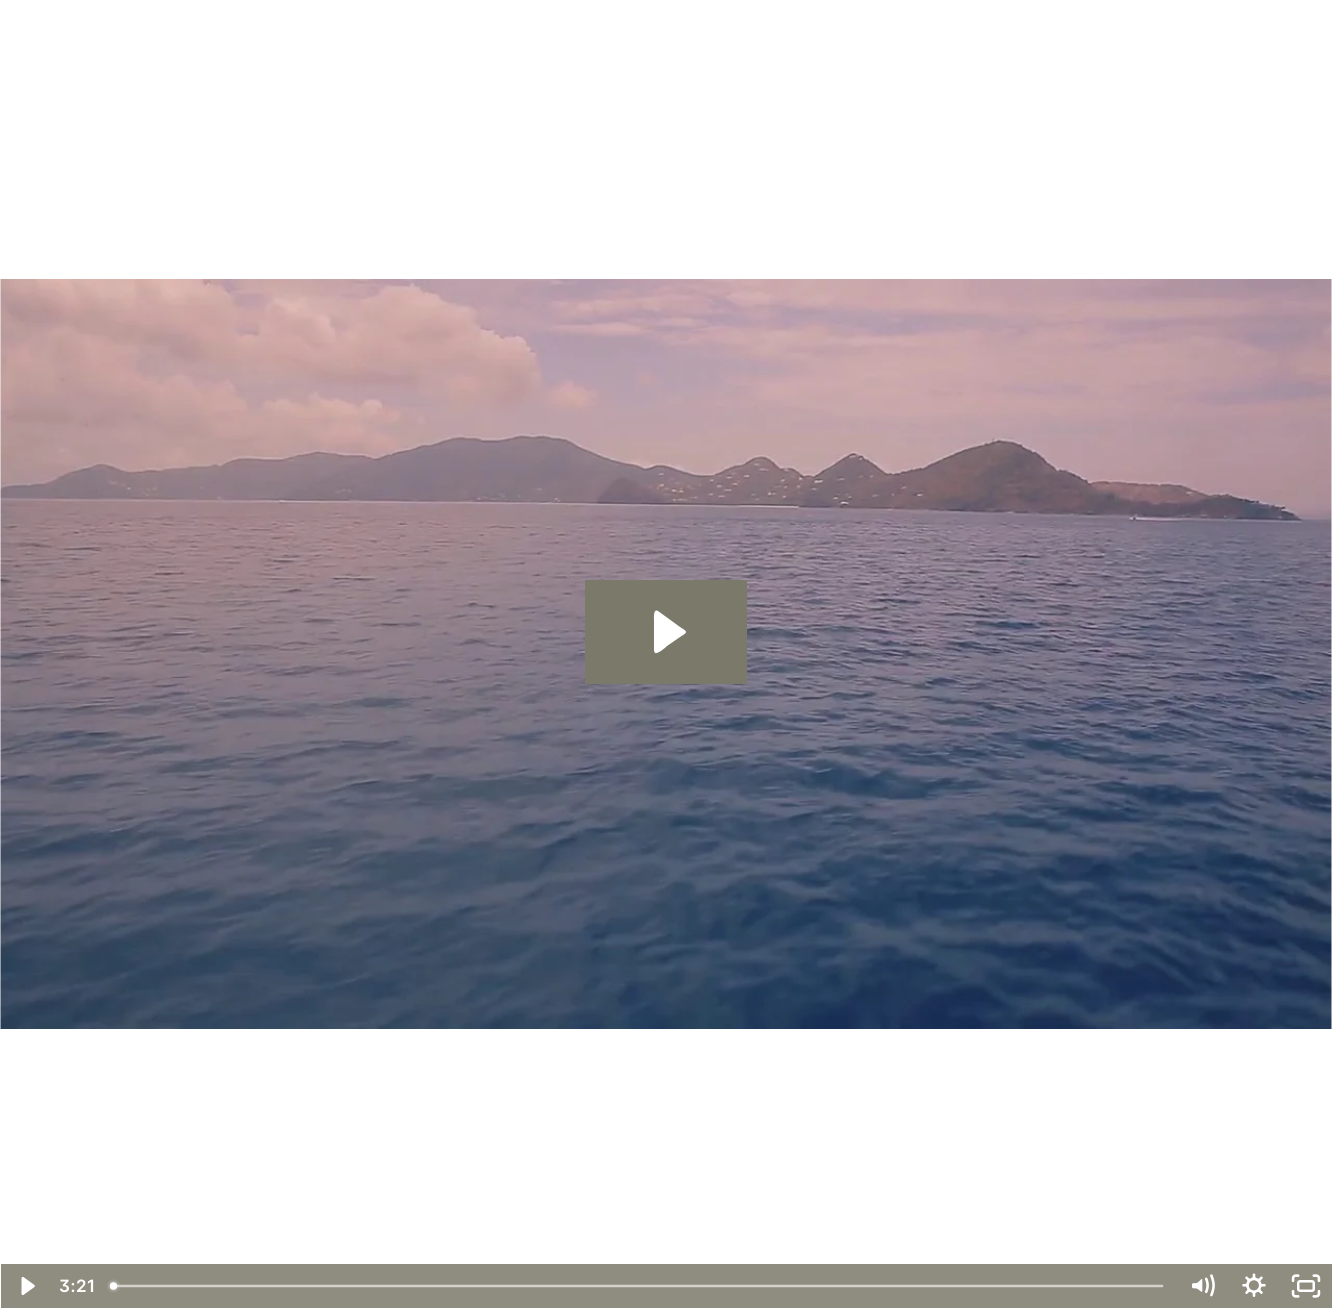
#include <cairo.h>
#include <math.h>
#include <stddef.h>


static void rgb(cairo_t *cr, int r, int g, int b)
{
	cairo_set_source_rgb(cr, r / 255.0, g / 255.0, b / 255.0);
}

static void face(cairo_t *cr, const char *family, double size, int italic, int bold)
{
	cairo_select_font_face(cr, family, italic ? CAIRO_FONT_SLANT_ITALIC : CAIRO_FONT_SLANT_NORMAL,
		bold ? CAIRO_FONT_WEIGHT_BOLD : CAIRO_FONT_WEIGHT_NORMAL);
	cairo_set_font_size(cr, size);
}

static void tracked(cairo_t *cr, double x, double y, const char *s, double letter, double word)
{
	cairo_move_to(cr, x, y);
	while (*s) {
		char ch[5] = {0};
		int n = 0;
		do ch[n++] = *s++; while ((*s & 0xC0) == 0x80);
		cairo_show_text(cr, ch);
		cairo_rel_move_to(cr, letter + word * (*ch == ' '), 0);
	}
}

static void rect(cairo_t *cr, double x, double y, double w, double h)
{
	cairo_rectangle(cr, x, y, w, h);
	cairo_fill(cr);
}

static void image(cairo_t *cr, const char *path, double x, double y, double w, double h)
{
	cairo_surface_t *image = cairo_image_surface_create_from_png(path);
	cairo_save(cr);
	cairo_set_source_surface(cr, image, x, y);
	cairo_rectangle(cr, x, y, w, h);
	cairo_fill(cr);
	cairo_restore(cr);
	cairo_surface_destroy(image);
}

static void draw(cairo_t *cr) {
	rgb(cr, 255, 255, 255);
	cairo_paint(cr);
	image(cr, "image0.png", 0, 279, 1332, 750);
	rgb(cr, 123, 121, 106);
	rect(cr, 585, 580, 162, 104);
	rgb(cr, 255, 255, 255);
	cairo_set_fill_rule(cr, CAIRO_FILL_RULE_EVEN_ODD);
	cairo_new_path(cr);
	cairo_move_to(cr, 658, 611);
	cairo_curve_to(cr, 653, 608, 654, 619, 654, 620);
	cairo_line_to(cr, 654, 651);
	cairo_line_to(cr, 655, 653);
	cairo_curve_to(cr, 658, 654, 665, 648, 667, 646);
	cairo_line_to(cr, 680, 637);
	cairo_curve_to(cr, 688, 632, 688, 632, 680, 627);
	cairo_close_path(cr);
	cairo_fill(cr);
	rgb(cr, 143, 141, 128);
	rect(cr, 1, 1264, 1331, 44);
	image(cr, "image1.png", 21, 1276, 14, 20);
	face(cr, "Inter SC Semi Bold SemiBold", 17, 0, 0);
	rgb(cr, 255, 255, 255);
	tracked(cr, 59, 1292, "3:21", 0.5, 0);
	image(cr, "image2.png", 107, 1279, 1057, 14);
	image(cr, "image3.png", 1191, 1274, 24, 23);
	image(cr, "image4.png", 1242, 1273, 24, 24);
	image(cr, "image5.png", 1291, 1274, 30, 24);
}

int main(void) {
	cairo_surface_t *surface = cairo_image_surface_create(CAIRO_FORMAT_RGB24, 1332, 1308);
	cairo_t *cr = cairo_create(surface);
	cairo_font_options_t *options = cairo_font_options_create();
	cairo_font_options_set_hint_metrics(options, CAIRO_HINT_METRICS_OFF);
	cairo_font_options_set_hint_style(options, CAIRO_HINT_STYLE_NONE);
	cairo_set_font_options(cr, options);
	cairo_set_miter_limit(cr, 4);
	draw(cr);
	cairo_surface_write_to_png(surface, "render.png");
	cairo_font_options_destroy(options);
	cairo_destroy(cr);
	cairo_surface_destroy(surface);
	return 0;
}
